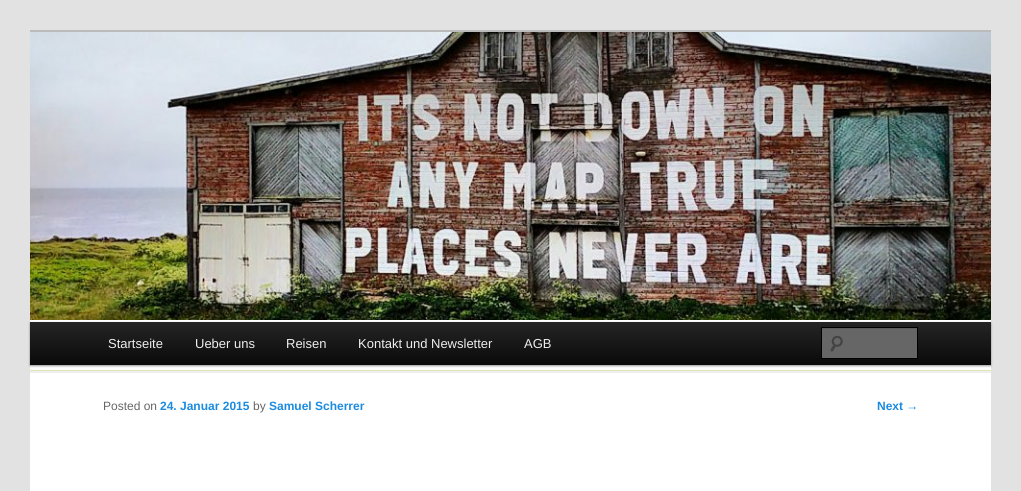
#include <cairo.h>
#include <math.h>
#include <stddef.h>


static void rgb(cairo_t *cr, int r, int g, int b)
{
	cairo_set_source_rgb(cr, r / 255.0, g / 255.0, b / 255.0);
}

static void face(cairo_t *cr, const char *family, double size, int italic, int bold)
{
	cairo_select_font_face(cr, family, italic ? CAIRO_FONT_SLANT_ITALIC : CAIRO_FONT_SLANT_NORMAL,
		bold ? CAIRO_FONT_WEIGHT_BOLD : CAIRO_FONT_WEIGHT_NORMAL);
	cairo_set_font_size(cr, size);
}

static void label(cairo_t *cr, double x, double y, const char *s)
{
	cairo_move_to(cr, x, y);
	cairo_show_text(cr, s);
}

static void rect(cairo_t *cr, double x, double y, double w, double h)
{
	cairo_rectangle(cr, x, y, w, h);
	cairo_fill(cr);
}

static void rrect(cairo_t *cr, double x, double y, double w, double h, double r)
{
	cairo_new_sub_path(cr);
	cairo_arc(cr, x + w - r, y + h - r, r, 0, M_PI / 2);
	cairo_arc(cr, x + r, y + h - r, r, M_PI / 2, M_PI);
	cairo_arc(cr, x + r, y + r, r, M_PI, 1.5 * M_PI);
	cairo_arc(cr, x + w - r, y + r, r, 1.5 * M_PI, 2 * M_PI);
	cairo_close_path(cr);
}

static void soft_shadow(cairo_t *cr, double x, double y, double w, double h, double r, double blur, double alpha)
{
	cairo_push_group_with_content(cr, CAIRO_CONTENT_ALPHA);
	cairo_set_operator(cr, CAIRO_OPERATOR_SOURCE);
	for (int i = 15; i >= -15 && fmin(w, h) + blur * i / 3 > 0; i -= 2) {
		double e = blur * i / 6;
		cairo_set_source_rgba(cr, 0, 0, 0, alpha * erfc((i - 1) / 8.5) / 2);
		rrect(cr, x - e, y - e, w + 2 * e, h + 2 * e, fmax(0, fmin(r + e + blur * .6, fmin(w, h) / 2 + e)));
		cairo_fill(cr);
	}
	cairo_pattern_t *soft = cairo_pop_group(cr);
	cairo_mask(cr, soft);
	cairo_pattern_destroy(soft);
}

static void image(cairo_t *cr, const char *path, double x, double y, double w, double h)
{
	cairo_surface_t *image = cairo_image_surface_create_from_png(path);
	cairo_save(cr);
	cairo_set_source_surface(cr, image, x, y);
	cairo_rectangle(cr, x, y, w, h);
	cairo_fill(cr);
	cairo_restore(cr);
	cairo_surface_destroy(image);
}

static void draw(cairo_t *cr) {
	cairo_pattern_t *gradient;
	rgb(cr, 226, 226, 226);
	cairo_paint(cr);
	rgb(cr, 255, 255, 255);
	rect(cr, 30, 320, 961, 171);
	rgb(cr, 187, 187, 187);
	rect(cr, 30, 30, 961, 2);
	rgb(cr, 0, 0, 0);
	soft_shadow(cr, 30, 323, 961, 43, 0, 1, 0.4);
	image(cr, "image0.png", 30, 32, 961, 288);
	gradient = cairo_pattern_create_linear(511, 322, 511, 365);
	cairo_pattern_add_color_stop_rgba(gradient, 0, 0.145, 0.145, 0.145, 1);
	cairo_pattern_add_color_stop_rgba(gradient, 1, 0.039, 0.039, 0.039, 1);
	cairo_set_source(cr, gradient);
	cairo_pattern_destroy(gradient);
	rect(cr, 30, 322, 961, 43);
	face(cr, "Liberation Sans", 13, 0, 0);
	rgb(cr, 238, 238, 238);
	label(cr, 108, 348, "Startseite");
	label(cr, 195, 348, "Ueber uns");
	label(cr, 286, 348, "Reisen");
	label(cr, 358, 348, "Kontakt und Newsletter");
	label(cr, 524, 348, "AGB");
	rgb(cr, 102, 102, 102);
	rect(cr, 822, 329, 95, 29);
	image(cr, "image1.png", 830, 335, 13, 17);
	rgb(cr, 92, 92, 92);
	rect(cr, 822, 328, 95, 1);
	cairo_rectangle(cr, 821.5, 327.5, 96, 31);
	rgb(cr, 0, 0, 0);
	cairo_set_line_width(cr, 1);
	cairo_stroke(cr);
	rgb(cr, 222, 231, 177);
	rect(cr, 30, 370, 961, 1);
	rgb(cr, 238, 238, 238);
	rect(cr, 30, 371, 961, 2);
	face(cr, "Liberation Sans", 12, 0, 0);
	rgb(cr, 102, 102, 102);
	label(cr, 103, 410, "Posted on");
	face(cr, "Liberation Sans", 12, 0, 1);
	rgb(cr, 27, 139, 224);
	label(cr, 160, 410, "24. Januar 2015");
	face(cr, "Liberation Sans", 12, 0, 0);
	rgb(cr, 102, 102, 102);
	label(cr, 253, 410, "by");
	face(cr, "Liberation Sans", 12, 0, 1);
	rgb(cr, 27, 139, 224);
	label(cr, 269, 410, "Samuel Scherrer");
	label(cr, 877, 410, "Next →");
}

int main(void) {
	cairo_surface_t *surface = cairo_image_surface_create(CAIRO_FORMAT_RGB24, 1021, 491);
	cairo_t *cr = cairo_create(surface);
	cairo_font_options_t *options = cairo_font_options_create();
	cairo_font_options_set_hint_metrics(options, CAIRO_HINT_METRICS_OFF);
	cairo_font_options_set_hint_style(options, CAIRO_HINT_STYLE_NONE);
	cairo_set_font_options(cr, options);
	cairo_set_miter_limit(cr, 4);
	draw(cr);
	cairo_surface_write_to_png(surface, "render.png");
	cairo_font_options_destroy(options);
	cairo_destroy(cr);
	cairo_surface_destroy(surface);
	return 0;
}
